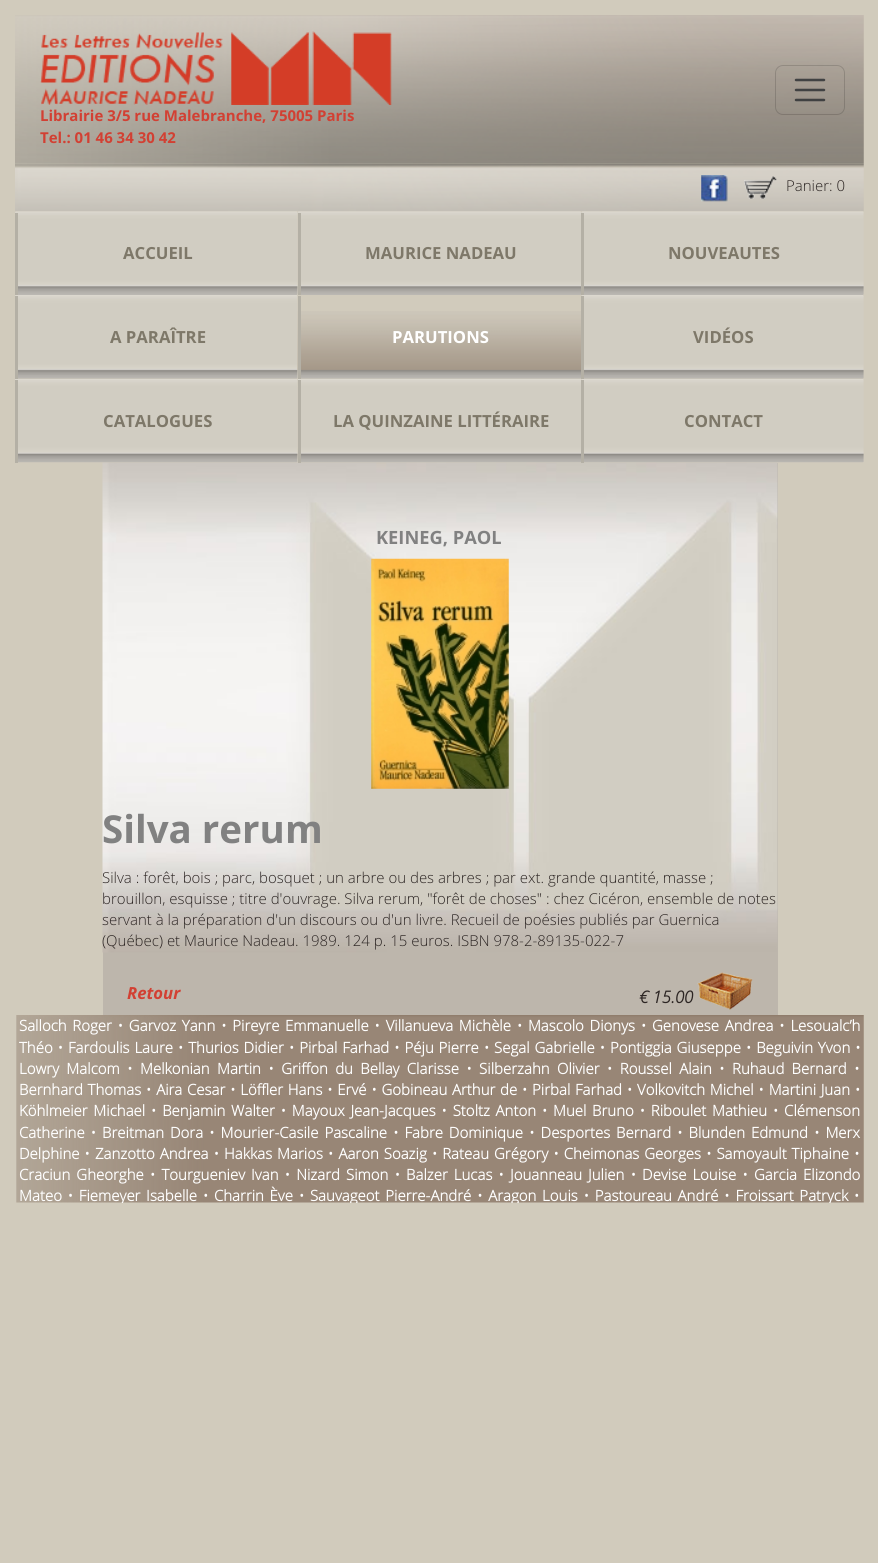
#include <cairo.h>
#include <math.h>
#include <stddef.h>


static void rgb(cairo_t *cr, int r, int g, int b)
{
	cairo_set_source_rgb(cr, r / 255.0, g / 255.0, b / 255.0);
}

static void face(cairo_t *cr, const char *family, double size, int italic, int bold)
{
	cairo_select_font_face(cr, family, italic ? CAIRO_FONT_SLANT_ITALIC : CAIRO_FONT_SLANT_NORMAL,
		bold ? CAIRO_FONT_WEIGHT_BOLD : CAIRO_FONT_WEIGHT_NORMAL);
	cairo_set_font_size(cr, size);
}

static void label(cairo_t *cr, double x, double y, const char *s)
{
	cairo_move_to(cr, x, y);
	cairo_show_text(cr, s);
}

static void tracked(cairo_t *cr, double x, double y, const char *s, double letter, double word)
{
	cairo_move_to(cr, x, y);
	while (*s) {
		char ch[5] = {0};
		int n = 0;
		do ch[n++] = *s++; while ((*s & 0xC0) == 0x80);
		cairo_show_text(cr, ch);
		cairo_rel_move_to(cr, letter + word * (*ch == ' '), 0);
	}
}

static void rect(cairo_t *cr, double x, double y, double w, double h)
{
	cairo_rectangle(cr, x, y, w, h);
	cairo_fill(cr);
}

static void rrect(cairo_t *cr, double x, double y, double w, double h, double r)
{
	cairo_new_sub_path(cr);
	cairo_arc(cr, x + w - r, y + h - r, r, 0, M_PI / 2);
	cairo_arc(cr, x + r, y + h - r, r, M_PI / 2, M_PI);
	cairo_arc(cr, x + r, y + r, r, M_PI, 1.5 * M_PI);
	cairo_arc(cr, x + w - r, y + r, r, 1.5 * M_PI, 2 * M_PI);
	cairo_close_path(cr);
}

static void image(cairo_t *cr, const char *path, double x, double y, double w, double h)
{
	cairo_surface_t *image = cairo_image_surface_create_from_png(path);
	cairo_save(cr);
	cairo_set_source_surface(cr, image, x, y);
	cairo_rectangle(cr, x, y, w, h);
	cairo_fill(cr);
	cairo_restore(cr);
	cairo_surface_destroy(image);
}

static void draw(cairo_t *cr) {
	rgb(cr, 209, 203, 188);
	cairo_paint(cr);
	image(cr, "image2.png", 15, 163, 849, 49);
	image(cr, "image0.png", 15, 15, 849, 149);
	rrect(cr, 775.5, 65.5, 69, 49, 7.5);
	cairo_set_source_rgba(cr, 0, 0, 0, 0.15);
	cairo_set_line_width(cr, 1);
	cairo_stroke(cr);
	cairo_new_path(cr);
	cairo_move_to(cr, 796, 80);
	cairo_line_to(cr, 824, 80);
	cairo_move_to(cr, 796, 90);
	cairo_line_to(cr, 824, 90);
	cairo_move_to(cr, 796, 100);
	cairo_line_to(cr, 824, 100);
	cairo_set_source_rgba(cr, 0.129, 0.145, 0.161, 0.75);
	cairo_set_line_width(cr, 2.5);
	cairo_set_line_cap(cr, CAIRO_LINE_CAP_ROUND);
	cairo_stroke(cr);
	image(cr, "image1.png", 40, 31, 352, 74);
	face(cr, "Open Sans", 15, 0, 1);
	rgb(cr, 210, 64, 51);
	label(cr, 40, 121, "Librairie 3/5 rue Malebranche, 75005 Paris");
	label(cr, 40, 143, "Tel.: 01 46 34 30 42");
	image(cr, "image3.png", 701, 175, 27, 27);
	image(cr, "image4.png", 744, 176, 33, 23);
	face(cr, "Open Sans Light", 15, 0, 0);
	rgb(cr, 44, 37, 35);
	label(cr, 786, 191, "Panier: 0");
	image(cr, "image5.png", 15, 211, 283, 84);
	rgb(cr, 180, 176, 165);
	rect(cr, 15, 213, 3, 82);
	face(cr, "Open Sans", 16.7, 0, 1);
	rgb(cr, 126, 120, 105);
	label(cr, 123, 259, "ACCUEIL");
	image(cr, "image6.png", 297, 211, 285, 84);
	rgb(cr, 180, 176, 165);
	rect(cr, 298, 213, 3, 82);
	rgb(cr, 126, 120, 105);
	label(cr, 365, 259, "MAURICE NADEAU");
	image(cr, "image7.png", 581, 211, 283, 84);
	rgb(cr, 180, 176, 165);
	rect(cr, 581, 213, 3, 82);
	rgb(cr, 126, 120, 105);
	label(cr, 668, 259, "NOUVEAUTES");
	image(cr, "image8.png", 15, 295, 283, 84);
	rgb(cr, 180, 176, 165);
	rect(cr, 15, 296, 3, 83);
	rgb(cr, 126, 120, 105);
	label(cr, 110, 343, "A PARAÎTRE");
	image(cr, "image9.png", 297, 311, 284, 68);
	rgb(cr, 180, 176, 165);
	rect(cr, 298, 296, 3, 83);
	rgb(cr, 255, 255, 255);
	label(cr, 392, 343, "PARUTIONS");
	image(cr, "image10.png", 581, 295, 283, 84);
	rgb(cr, 180, 176, 165);
	rect(cr, 581, 296, 3, 83);
	rgb(cr, 126, 120, 105);
	label(cr, 693, 343, "VIDÉOS");
	rgb(cr, 189, 182, 172);
	rect(cr, 103, 463, 675, 552);
	image(cr, "image14.png", 102, 462, 676, 491);
	image(cr, "image11.png", 15, 379, 283, 84);
	rgb(cr, 180, 176, 165);
	rect(cr, 15, 380, 3, 83);
	rgb(cr, 126, 120, 105);
	label(cr, 103, 427, "CATALOGUES");
	image(cr, "image12.png", 297, 379, 285, 84);
	rgb(cr, 180, 176, 165);
	rect(cr, 298, 380, 3, 83);
	rgb(cr, 126, 120, 105);
	label(cr, 333, 427, "LA QUINZAINE LITTÉRAIRE");
	image(cr, "image13.png", 581, 379, 283, 84);
	rgb(cr, 180, 176, 165);
	rect(cr, 581, 380, 3, 83);
	rgb(cr, 126, 120, 105);
	label(cr, 684, 427, "CONTACT");
	face(cr, "Open Sans", 18.25, 0, 1);
	rgb(cr, 129, 129, 129);
	label(cr, 376, 544, "KEINEG, PAOL");
	image(cr, "image15.png", 371, 558, 138, 231);
	face(cr, "Open Sans", 38.5, 0, 1);
	label(cr, 102, 843, "Silva rerum");
	face(cr, "Open Sans Light", 15, 0, 0);
	rgb(cr, 44, 37, 35);
	label(cr, 102, 883, "Silva : forêt, bois ; parc, bosquet ; un arbre ou des arbres ; par ext. grande quantité, masse ;");
	label(cr, 102, 904, "brouillon, esquisse ; titre d'ouvrage. Silva rerum, \"forêt de choses\" : chez Cicéron, ensemble de notes");
	label(cr, 102, 925, "servant à la préparation d'un discours ou d'un livre. Recueil de poésies publiés par Guernica");
	label(cr, 102, 946, "(Québec) et Maurice Nadeau. 1989. 124 p. 15 euros. ISBN 978-2-89135-022-7");
	face(cr, "Open Sans", 16.7, 1, 1);
	rgb(cr, 210, 64, 51);
	label(cr, 127, 999, "Retour");
	face(cr, "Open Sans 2", 16.7, 1, 1);
	rgb(cr, 44, 37, 35);
	label(cr, 639, 1003, "€ 15.00");
	image(cr, "image16.png", 697, 972, 56, 38);
	image(cr, "image17.png", 16, 1015, 848, 188);
	face(cr, "Open Sans 2", 15, 0, 1);
	rgb(cr, 255, 255, 255);
	tracked(cr, 19, 1031, "Salloch Roger • Garvoz Yann • Pireyre Emmanuelle • Villanueva Michèle • Mascolo Dionys • Genovese Andrea • Lesoualc’h", 0, 1.75);
	tracked(cr, 19, 1053, "Théo • Fardoulis Laure • Thurios Didier • Pirbal Farhad • Péju Pierre • Segal Gabrielle • Pontiggia Giuseppe • Beguivin Yvon •", 0, 0.9);
	tracked(cr, 19, 1074, "Lowry Malcom • Melkonian Martin • Griffon du Bellay Clarisse • Silberzahn Olivier • Roussel Alain • Ruhaud Bernard •", 0, 3.4);
	tracked(cr, 19, 1095, "Bernhard Thomas • Aira Cesar • Löffler Hans • Ervé • Gobineau Arthur de • Pirbal Farhad • Volkovitch Michel • Martini Juan •", 0, 0.75);
	tracked(cr, 19, 1116, "Köhlmeier Michael • Benjamin Walter • Mayoux Jean-Jacques • Stoltz Anton • Muel Bruno • Riboulet Mathieu • Clémenson", 0, 1.75);
	tracked(cr, 19, 1138, "Catherine • Breitman Dora • Mourier-Casile Pascaline • Fabre Dominique • Desportes Bernard • Blunden Edmund • Merx", 0, 2);
	tracked(cr, 19, 1159, "Delphine • Zanzotto Andrea • Hakkas Marios • Aaron Soazig • Rateau Grégory • Cheimonas Georges • Samoyault Tiphaine •", 0, 1);
	tracked(cr, 19, 1180, "Craciun Gheorghe • Tourgueniev Ivan • Nizard Simon • Balzer Lucas • Jouanneau Julien • Devise Louise • Garcia Elizondo", 0, 2.1);
	cairo_save(cr);
	cairo_rectangle(cr, 15, 1015, 849, 188);
	cairo_clip(cr);
	tracked(cr, 19, 1201, "Mateo • Fiemeyer Isabelle • Charrin Ève • Sauvageot Pierre-André • Aragon Louis • Pastoureau André • Froissart Patryck •", 0, 1.75);
	cairo_restore(cr);
}

int main(void) {
	cairo_surface_t *surface = cairo_image_surface_create(CAIRO_FORMAT_RGB24, 878, 1563);
	cairo_t *cr = cairo_create(surface);
	cairo_font_options_t *options = cairo_font_options_create();
	cairo_font_options_set_hint_metrics(options, CAIRO_HINT_METRICS_OFF);
	cairo_font_options_set_hint_style(options, CAIRO_HINT_STYLE_NONE);
	cairo_set_font_options(cr, options);
	cairo_set_miter_limit(cr, 4);
	draw(cr);
	cairo_surface_write_to_png(surface, "render.png");
	cairo_font_options_destroy(options);
	cairo_destroy(cr);
	cairo_surface_destroy(surface);
	return 0;
}
